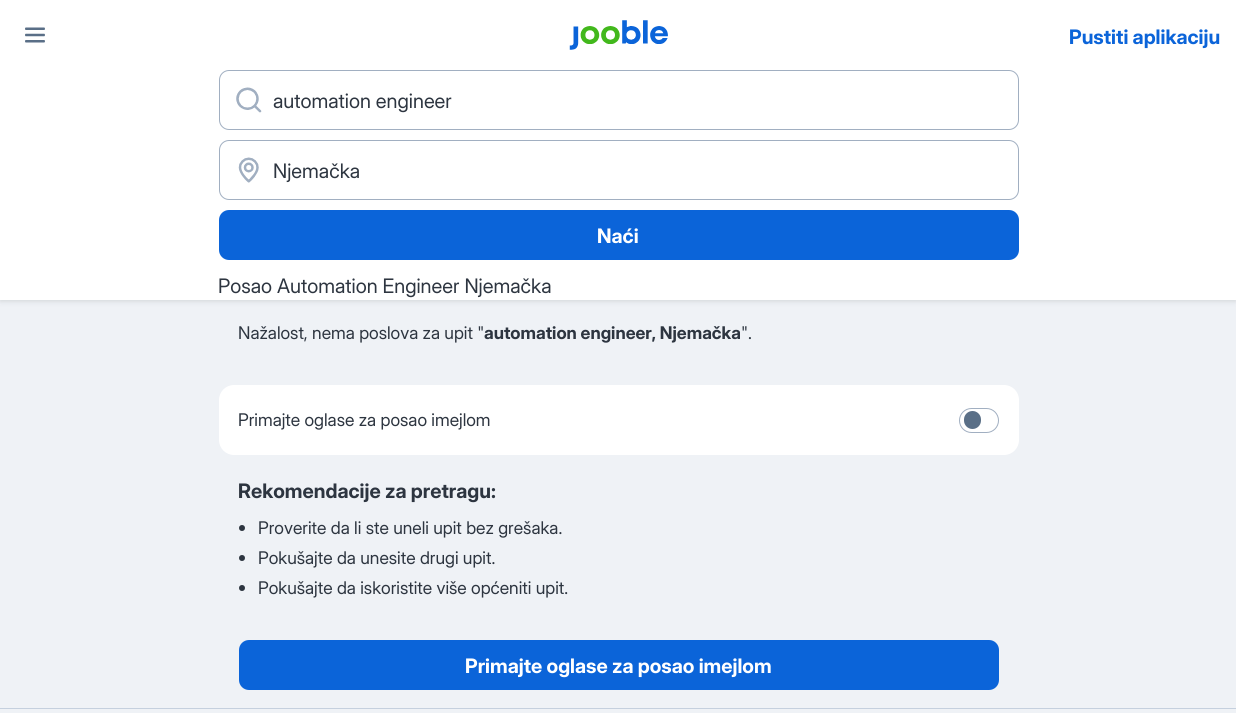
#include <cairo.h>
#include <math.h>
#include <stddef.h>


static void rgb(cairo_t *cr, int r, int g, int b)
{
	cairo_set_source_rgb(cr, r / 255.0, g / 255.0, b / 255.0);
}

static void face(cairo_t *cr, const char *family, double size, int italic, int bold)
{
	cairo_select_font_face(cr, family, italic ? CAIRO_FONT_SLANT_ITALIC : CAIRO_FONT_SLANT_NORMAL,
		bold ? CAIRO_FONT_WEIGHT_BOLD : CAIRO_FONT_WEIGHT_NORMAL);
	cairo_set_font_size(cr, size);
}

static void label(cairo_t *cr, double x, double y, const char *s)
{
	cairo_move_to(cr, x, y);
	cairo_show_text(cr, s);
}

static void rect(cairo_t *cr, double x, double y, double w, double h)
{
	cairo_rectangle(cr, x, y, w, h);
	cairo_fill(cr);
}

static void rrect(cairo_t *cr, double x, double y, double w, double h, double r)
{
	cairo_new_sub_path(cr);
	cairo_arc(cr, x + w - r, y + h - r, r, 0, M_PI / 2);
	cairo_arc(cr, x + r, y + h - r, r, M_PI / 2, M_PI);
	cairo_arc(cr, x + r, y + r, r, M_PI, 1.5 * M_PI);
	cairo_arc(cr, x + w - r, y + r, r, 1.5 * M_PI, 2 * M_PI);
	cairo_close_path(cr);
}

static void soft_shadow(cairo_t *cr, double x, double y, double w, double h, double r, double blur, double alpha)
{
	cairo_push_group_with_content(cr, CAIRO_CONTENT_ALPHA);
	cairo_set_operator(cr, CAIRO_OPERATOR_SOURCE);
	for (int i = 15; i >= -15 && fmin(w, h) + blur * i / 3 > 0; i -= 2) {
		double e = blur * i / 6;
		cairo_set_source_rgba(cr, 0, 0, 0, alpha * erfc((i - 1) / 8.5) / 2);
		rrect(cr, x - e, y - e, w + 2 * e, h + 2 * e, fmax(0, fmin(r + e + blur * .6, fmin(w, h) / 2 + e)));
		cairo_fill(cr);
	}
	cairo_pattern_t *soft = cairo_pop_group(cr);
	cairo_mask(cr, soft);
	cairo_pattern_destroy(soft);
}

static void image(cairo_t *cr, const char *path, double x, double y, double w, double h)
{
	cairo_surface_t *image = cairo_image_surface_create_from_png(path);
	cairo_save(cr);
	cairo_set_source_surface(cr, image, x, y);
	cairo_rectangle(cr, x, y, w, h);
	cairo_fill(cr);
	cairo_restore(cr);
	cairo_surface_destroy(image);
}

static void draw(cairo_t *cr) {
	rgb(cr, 239, 242, 246);
	cairo_paint(cr);
	rgb(cr, 23, 30, 38);
	soft_shadow(cr, 0, 0, 1236, 300, 0, 4, 0.12);
	soft_shadow(cr, 0, 0, 1236, 300, 0, 2.5, 0.08);
	rgb(cr, 255, 255, 255);
	rect(cr, 0, 0, 1236, 300);
	image(cr, "image0.png", 25, 27, 20, 16);
	image(cr, "image1.png", 569, 20, 99, 30);
	face(cr, "Inter Display", 20, 0, 1);
	rgb(cr, 11, 100, 217);
	label(cr, 1069, 44, "Pustiti aplikaciju");
	rrect(cr, 219.5, 70.5, 799, 59, 9.5);
	rgb(cr, 161, 175, 193);
	cairo_set_line_width(cr, 1);
	cairo_stroke(cr);
	image(cr, "image2.png", 236, 87, 26, 26);
	face(cr, "Inter Display", 20, 0, 0);
	rgb(cr, 45, 53, 64);
	label(cr, 273, 108, "automation engineer");
	rrect(cr, 219.5, 140.5, 799, 59, 9.5);
	rgb(cr, 161, 175, 193);
	cairo_stroke(cr);
	image(cr, "image3.png", 238, 157, 21, 26);
	rgb(cr, 45, 53, 64);
	label(cr, 273, 178, "Njemačka");
	rgb(cr, 11, 100, 217);
	rrect(cr, 219, 210, 800, 50, 10);
	cairo_fill(cr);
	face(cr, "Inter Display", 20, 0, 1);
	rgb(cr, 255, 255, 255);
	label(cr, 597, 243, "Naći");
	face(cr, "Inter Display", 20, 0, 0);
	rgb(cr, 45, 53, 64);
	label(cr, 218, 293, "Posao Automation Engineer Njemačka");
	face(cr, "Inter Display", 17.5, 0, 0);
	label(cr, 238, 339, "Nažalost, nema poslova za upit \"");
	face(cr, "Inter Display", 17.5, 0, 1);
	label(cr, 484, 339, "automation engineer, Njemačka");
	face(cr, "Inter Display", 17.5, 0, 0);
	label(cr, 741, 339, "\".");
	rgb(cr, 255, 255, 255);
	rrect(cr, 219, 385, 800, 70, 15);
	cairo_fill(cr);
	rgb(cr, 45, 53, 64);
	label(cr, 238, 426, "Primajte oglase za posao imejlom");
	rrect(cr, 959.5, 408.5, 39, 24, 12);
	rgb(cr, 161, 175, 193);
	cairo_stroke(cr);
	rgb(cr, 90, 111, 135);
	rrect(cr, 964, 411, 17, 18, 8.5);
	cairo_fill(cr);
	face(cr, "Inter Display", 20, 0, 1);
	rgb(cr, 45, 53, 64);
	label(cr, 238, 498, "Rekomendacije za pretragu:");
	cairo_new_path(cr);
	cairo_arc(cr, 242, 528, 3, 0, 2 * M_PI);
	cairo_fill(cr);
	face(cr, "Inter Display", 17.5, 0, 0);
	label(cr, 258, 534, "Proverite da li ste uneli upit bez grešaka.");
	cairo_new_path(cr);
	cairo_arc(cr, 242, 558, 3, 0, 2 * M_PI);
	cairo_fill(cr);
	label(cr, 258, 564, "Pokušajte da unesite drugi upit.");
	cairo_new_path(cr);
	cairo_arc(cr, 242, 588, 3, 0, 2 * M_PI);
	cairo_fill(cr);
	label(cr, 258, 594, "Pokušajte da iskoristite više općeniti upit.");
	rgb(cr, 11, 100, 217);
	rrect(cr, 239, 640, 760, 50, 10);
	cairo_fill(cr);
	face(cr, "Inter Display", 20, 0, 1);
	rgb(cr, 255, 255, 255);
	label(cr, 465, 673, "Primajte oglase za posao imejlom");
	rgb(cr, 197, 208, 222);
	rect(cr, 0, 708, 1236, 1);
}

int main(void) {
	cairo_surface_t *surface = cairo_image_surface_create(CAIRO_FORMAT_RGB24, 1236, 713);
	cairo_t *cr = cairo_create(surface);
	cairo_font_options_t *options = cairo_font_options_create();
	cairo_font_options_set_hint_metrics(options, CAIRO_HINT_METRICS_OFF);
	cairo_font_options_set_hint_style(options, CAIRO_HINT_STYLE_NONE);
	cairo_set_font_options(cr, options);
	cairo_set_miter_limit(cr, 4);
	draw(cr);
	cairo_surface_write_to_png(surface, "render.png");
	cairo_font_options_destroy(options);
	cairo_destroy(cr);
	cairo_surface_destroy(surface);
	return 0;
}
